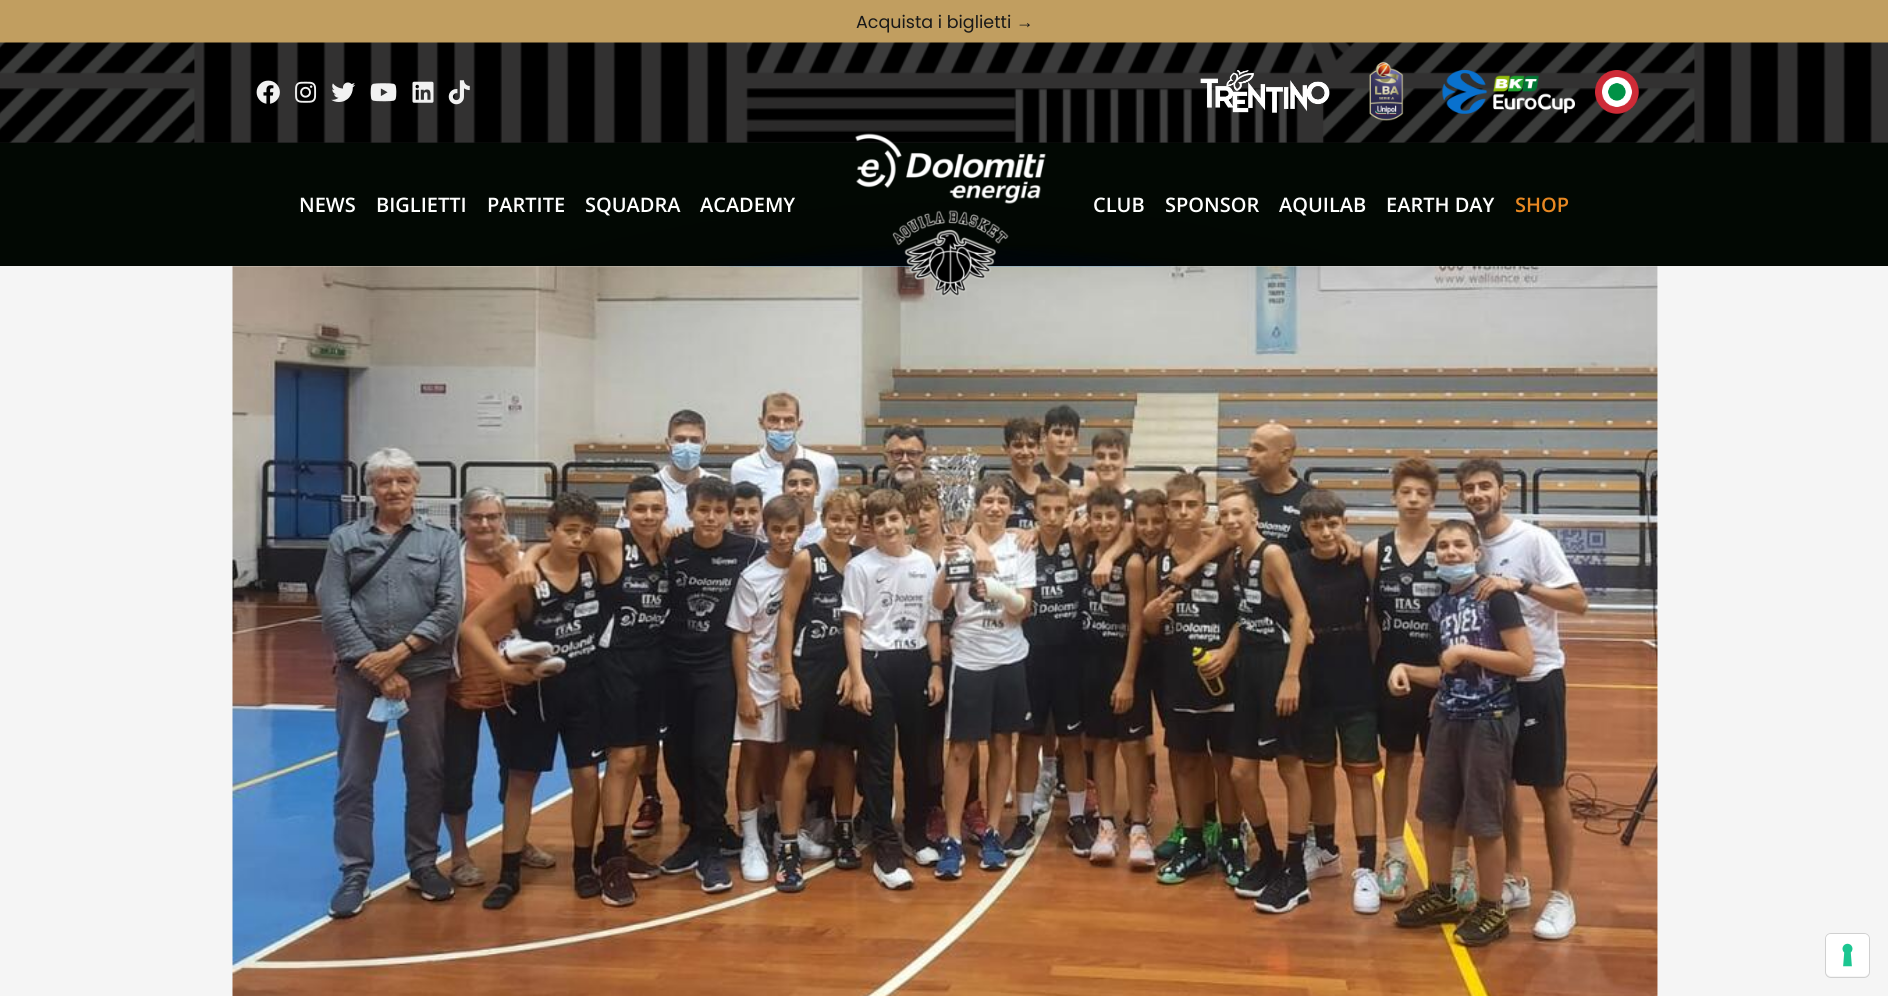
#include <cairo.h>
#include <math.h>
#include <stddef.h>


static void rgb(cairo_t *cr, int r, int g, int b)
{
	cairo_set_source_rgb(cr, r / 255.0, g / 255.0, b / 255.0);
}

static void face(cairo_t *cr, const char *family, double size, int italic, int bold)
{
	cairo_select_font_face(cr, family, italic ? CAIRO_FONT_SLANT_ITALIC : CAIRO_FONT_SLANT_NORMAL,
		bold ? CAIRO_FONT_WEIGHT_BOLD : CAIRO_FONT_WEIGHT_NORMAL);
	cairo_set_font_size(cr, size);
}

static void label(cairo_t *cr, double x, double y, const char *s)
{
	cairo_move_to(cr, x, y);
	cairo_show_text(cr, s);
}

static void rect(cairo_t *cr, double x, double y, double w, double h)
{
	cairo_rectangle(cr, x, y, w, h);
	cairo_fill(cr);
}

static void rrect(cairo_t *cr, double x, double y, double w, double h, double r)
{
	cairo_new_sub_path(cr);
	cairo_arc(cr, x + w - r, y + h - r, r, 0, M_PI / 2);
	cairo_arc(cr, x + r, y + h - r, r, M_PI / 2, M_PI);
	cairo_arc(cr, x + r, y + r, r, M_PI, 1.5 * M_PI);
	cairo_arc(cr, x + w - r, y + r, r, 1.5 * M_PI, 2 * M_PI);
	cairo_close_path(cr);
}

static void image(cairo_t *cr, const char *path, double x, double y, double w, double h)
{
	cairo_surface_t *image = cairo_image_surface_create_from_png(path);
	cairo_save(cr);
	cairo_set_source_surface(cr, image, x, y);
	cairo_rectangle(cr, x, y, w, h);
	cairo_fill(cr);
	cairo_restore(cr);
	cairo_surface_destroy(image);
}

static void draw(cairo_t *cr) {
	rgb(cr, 245, 245, 245);
	cairo_paint(cr);
	rgb(cr, 193, 158, 96);
	rect(cr, 0, 0, 1888, 43);
	face(cr, "Poppins", 17.5, 0, 0);
	rgb(cr, 24, 24, 24);
	label(cr, 856, 28, "Acquista i biglietti");
	face(cr, "Liberation Serif", 17.5, 0, 0);
	label(cr, 1016, 28, "→");
	rgb(cr, 17, 17, 17);
	rect(cr, 0, 142, 1888, 1);
	image(cr, "image0.png", 0, 42, 1888, 101);
	image(cr, "image1.png", 256, 80, 24, 24);
	image(cr, "image2.png", 295, 81, 22, 22);
	image(cr, "image3.png", 331, 82, 25, 20);
	image(cr, "image4.png", 370, 83, 27, 19);
	image(cr, "image5.png", 412, 81, 22, 22);
	image(cr, "image6.png", 448, 80, 22, 25);
	image(cr, "image7.png", 1200, 70, 130, 43);
	image(cr, "image8.png", 1369, 61, 35, 60);
	image(cr, "image9.png", 1442, 70, 133, 44);
	image(cr, "image10.png", 1595, 70, 44, 44);
	rgb(cr, 2, 8, 3);
	rect(cr, 0, 143, 1888, 123);
	rgb(cr, 255, 255, 255);
	rect(cr, 233, 266, 1425, 730);
	image(cr, "image13.png", 232, 266, 1426, 730);
	image(cr, "image11.png", 446, 182, 997, 85);
	face(cr, "Open Sans SemiBold", 20, 0, 0);
	label(cr, 299, 212, "NEWS");
	label(cr, 376, 212, "BIGLIETTI");
	label(cr, 487, 212, "PARTITE");
	label(cr, 585, 212, "SQUADRA");
	label(cr, 700, 212, "ACADEMY");
	image(cr, "image12.png", 855, 133, 191, 164);
	label(cr, 1093, 212, "CLUB");
	label(cr, 1165, 212, "SPONSOR");
	label(cr, 1279, 212, "AQUILAB");
	label(cr, 1386, 212, "EARTH DAY");
	rgb(cr, 232, 136, 34);
	label(cr, 1515, 212, "SHOP");
	rrect(cr, 1825.5, 933.5, 44, 44, 5.5);
	rgb(cr, 208, 208, 208);
	cairo_set_line_width(cr, 1);
	cairo_stroke(cr);
	rgb(cr, 255, 255, 255);
	rrect(cr, 1826, 934, 43, 42, 5);
	cairo_fill(cr);
	image(cr, "image14.png", 1842, 943, 11, 24);
}

int main(void) {
	cairo_surface_t *surface = cairo_image_surface_create(CAIRO_FORMAT_RGB24, 1888, 996);
	cairo_t *cr = cairo_create(surface);
	cairo_font_options_t *options = cairo_font_options_create();
	cairo_font_options_set_hint_metrics(options, CAIRO_HINT_METRICS_OFF);
	cairo_font_options_set_hint_style(options, CAIRO_HINT_STYLE_NONE);
	cairo_set_font_options(cr, options);
	cairo_set_miter_limit(cr, 4);
	draw(cr);
	cairo_surface_write_to_png(surface, "render.png");
	cairo_font_options_destroy(options);
	cairo_destroy(cr);
	cairo_surface_destroy(surface);
	return 0;
}
